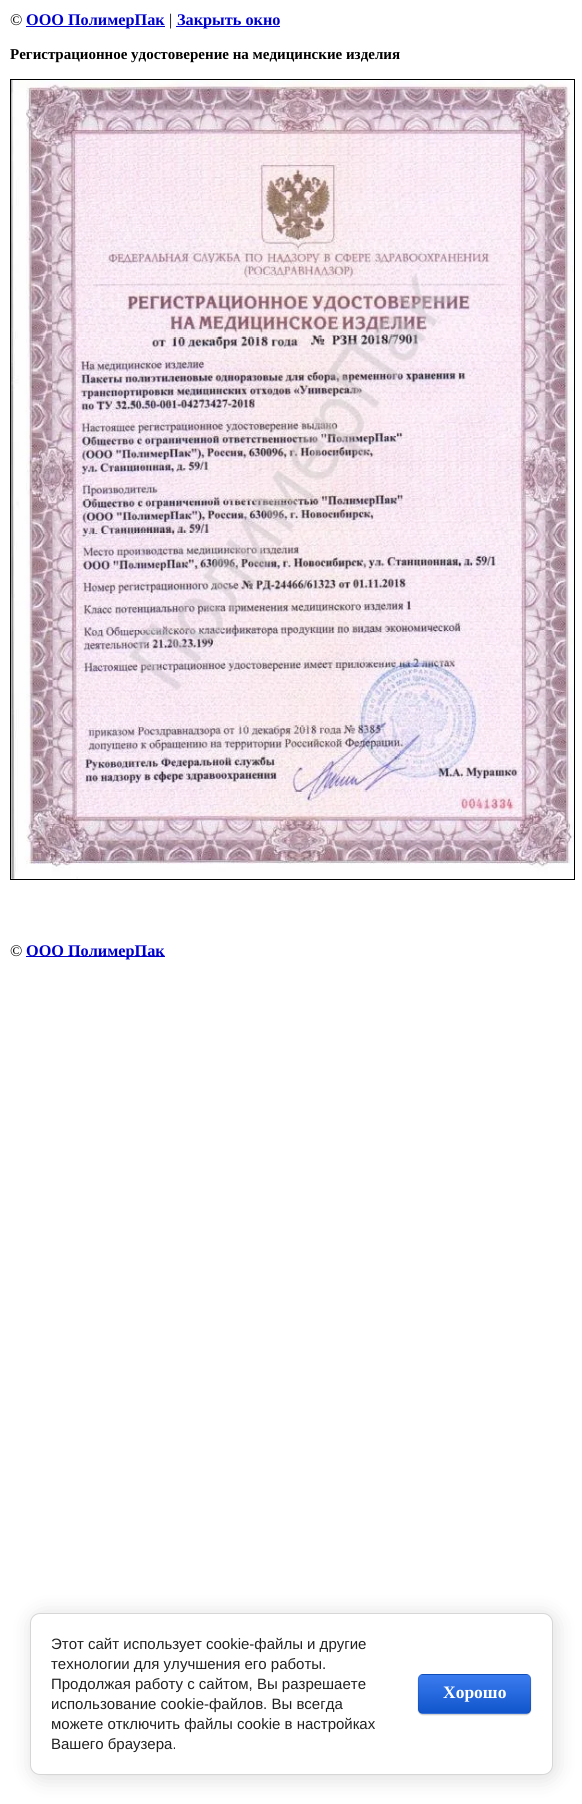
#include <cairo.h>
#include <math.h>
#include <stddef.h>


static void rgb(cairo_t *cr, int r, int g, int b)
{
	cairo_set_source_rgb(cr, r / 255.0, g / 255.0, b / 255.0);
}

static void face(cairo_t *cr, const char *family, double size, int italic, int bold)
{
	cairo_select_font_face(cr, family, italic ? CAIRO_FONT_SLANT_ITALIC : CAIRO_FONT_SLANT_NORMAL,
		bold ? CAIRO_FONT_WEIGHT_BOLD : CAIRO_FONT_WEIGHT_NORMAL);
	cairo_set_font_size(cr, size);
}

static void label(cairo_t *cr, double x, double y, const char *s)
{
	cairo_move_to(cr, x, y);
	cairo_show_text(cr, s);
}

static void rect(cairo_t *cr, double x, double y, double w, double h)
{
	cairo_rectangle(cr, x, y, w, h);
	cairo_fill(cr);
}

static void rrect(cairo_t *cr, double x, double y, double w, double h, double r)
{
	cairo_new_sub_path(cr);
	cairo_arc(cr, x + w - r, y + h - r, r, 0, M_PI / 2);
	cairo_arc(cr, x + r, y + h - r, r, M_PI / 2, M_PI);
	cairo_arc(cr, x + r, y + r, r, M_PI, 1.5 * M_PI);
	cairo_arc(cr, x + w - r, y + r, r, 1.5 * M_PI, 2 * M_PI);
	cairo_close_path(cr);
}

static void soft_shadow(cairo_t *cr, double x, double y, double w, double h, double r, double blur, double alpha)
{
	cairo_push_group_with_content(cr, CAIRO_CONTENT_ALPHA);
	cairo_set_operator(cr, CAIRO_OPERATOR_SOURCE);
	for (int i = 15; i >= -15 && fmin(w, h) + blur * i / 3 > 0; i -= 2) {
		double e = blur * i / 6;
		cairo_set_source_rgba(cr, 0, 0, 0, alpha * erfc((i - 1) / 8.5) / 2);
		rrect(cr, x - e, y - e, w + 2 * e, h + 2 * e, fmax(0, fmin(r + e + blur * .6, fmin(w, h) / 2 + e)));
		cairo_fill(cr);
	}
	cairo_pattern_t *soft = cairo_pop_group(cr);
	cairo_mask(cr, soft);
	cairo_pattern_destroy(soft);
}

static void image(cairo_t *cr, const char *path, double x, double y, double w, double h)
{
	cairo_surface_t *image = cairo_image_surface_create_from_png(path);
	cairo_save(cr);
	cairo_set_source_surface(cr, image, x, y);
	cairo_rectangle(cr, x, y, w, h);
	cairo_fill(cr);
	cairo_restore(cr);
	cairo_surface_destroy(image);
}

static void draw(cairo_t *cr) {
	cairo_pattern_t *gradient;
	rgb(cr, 255, 255, 255);
	cairo_paint(cr);
	face(cr, "Liberation Serif", 16.25, 0, 0);
	rgb(cr, 0, 0, 0);
	label(cr, 10, 25, "©");
	rgb(cr, 0, 0, 204);
	rect(cr, 26, 26, 139, 1);
	face(cr, "Liberation Serif", 16.25, 0, 1);
	label(cr, 26, 25, "ООО ПолимерПак");
	face(cr, "Liberation Serif", 16.25, 0, 0);
	rgb(cr, 0, 0, 0);
	label(cr, 169, 25, "|");
	rgb(cr, 0, 0, 204);
	rect(cr, 176, 26, 104, 1);
	face(cr, "Liberation Serif", 16.25, 0, 1);
	label(cr, 177, 25, "Закрыть окно");
	face(cr, "Liberation Serif", 15, 0, 1);
	rgb(cr, 0, 0, 0);
	label(cr, 10, 59, "Регистрационное удостоверение на медицинские изделия");
	cairo_rectangle(cr, 10.5, 79.5, 564, 800);
	cairo_set_line_width(cr, 1);
	cairo_stroke(cr);
	image(cr, "image0.png", 11, 80, 563, 799);
	face(cr, "Liberation Serif", 16.25, 0, 0);
	label(cr, 10, 956, "©");
	rgb(cr, 0, 0, 204);
	rect(cr, 26, 956, 139, 1);
	face(cr, "Liberation Serif", 16.25, 0, 1);
	label(cr, 26, 956, "ООО ПолимерПак");
	rgb(cr, 0, 0, 0);
	soft_shadow(cr, 33, 1615, 522, 163, 10, 11, 0.14);
	rgb(cr, 255, 255, 255);
	rrect(cr, 30.5, 1613.5, 522, 161, 9.5);
	cairo_fill_preserve(cr);
	rgb(cr, 214, 214, 214);
	cairo_stroke(cr);
	face(cr, "Liberation Sans", 15, 0, 0);
	rgb(cr, 33, 33, 33);
	label(cr, 51, 1649, "Этот сайт использует cookie-файлы и другие");
	label(cr, 51, 1669, "технологии для улучшения его работы.");
	label(cr, 51, 1689, "Продолжая работу с сайтом, Вы разрешаете");
	label(cr, 51, 1709, "использование cookie-файлов. Вы всегда");
	label(cr, 51, 1729, "можете отключить файлы cookie в настройках");
	label(cr, 51, 1749, "Вашего браузера.");
	rgb(cr, 0, 0, 0);
	soft_shadow(cr, 418, 1675, 113, 40, 5, 0.5, 0.2);
	cairo_save(cr);
	rrect(cr, 418, 1674, 113, 40, 5);
	cairo_clip(cr);
	gradient = cairo_pattern_create_linear(474, 1638, 474, 1675);
	cairo_pattern_add_color_stop_rgba(gradient, 0, 0.231, 0.486, 0.937, 1);
	cairo_pattern_add_color_stop_rgba(gradient, 1, 0.067, 0.333, 0.8, 1);
	cairo_set_source(cr, gradient);
	cairo_pattern_destroy(gradient);
	rect(cr, 418, 1674, 113, 1);
	gradient = cairo_pattern_create_linear(474, 1675, 474, 1713);
	cairo_pattern_add_color_stop_rgba(gradient, 0, 0.231, 0.486, 0.937, 1);
	cairo_pattern_add_color_stop_rgba(gradient, 1, 0.067, 0.333, 0.8, 1);
	cairo_set_source(cr, gradient);
	cairo_pattern_destroy(gradient);
	rect(cr, 418, 1675, 113, 38);
	gradient = cairo_pattern_create_linear(474, 1713, 474, 1750);
	cairo_pattern_add_color_stop_rgba(gradient, 0, 0.231, 0.486, 0.937, 1);
	cairo_pattern_add_color_stop_rgba(gradient, 1, 0.067, 0.333, 0.8, 1);
	cairo_set_source(cr, gradient);
	cairo_pattern_destroy(gradient);
	rect(cr, 418, 1713, 113, 1);
	cairo_restore(cr);
	rrect(cr, 418.5, 1674.5, 112, 39, 4.5);
	cairo_set_source_rgba(cr, 0, 0, 0, 0.1);
	cairo_stroke(cr);
	face(cr, "Liberation Serif", 17.5, 0, 1);
	rgb(cr, 255, 255, 255);
	label(cr, 443, 1698, "Хорошо");
}

int main(void) {
	cairo_surface_t *surface = cairo_image_surface_create(CAIRO_FORMAT_RGB24, 582, 1804);
	cairo_t *cr = cairo_create(surface);
	cairo_font_options_t *options = cairo_font_options_create();
	cairo_font_options_set_hint_metrics(options, CAIRO_HINT_METRICS_OFF);
	cairo_font_options_set_hint_style(options, CAIRO_HINT_STYLE_NONE);
	cairo_set_font_options(cr, options);
	cairo_set_miter_limit(cr, 4);
	draw(cr);
	cairo_surface_write_to_png(surface, "render.png");
	cairo_font_options_destroy(options);
	cairo_destroy(cr);
	cairo_surface_destroy(surface);
	return 0;
}
